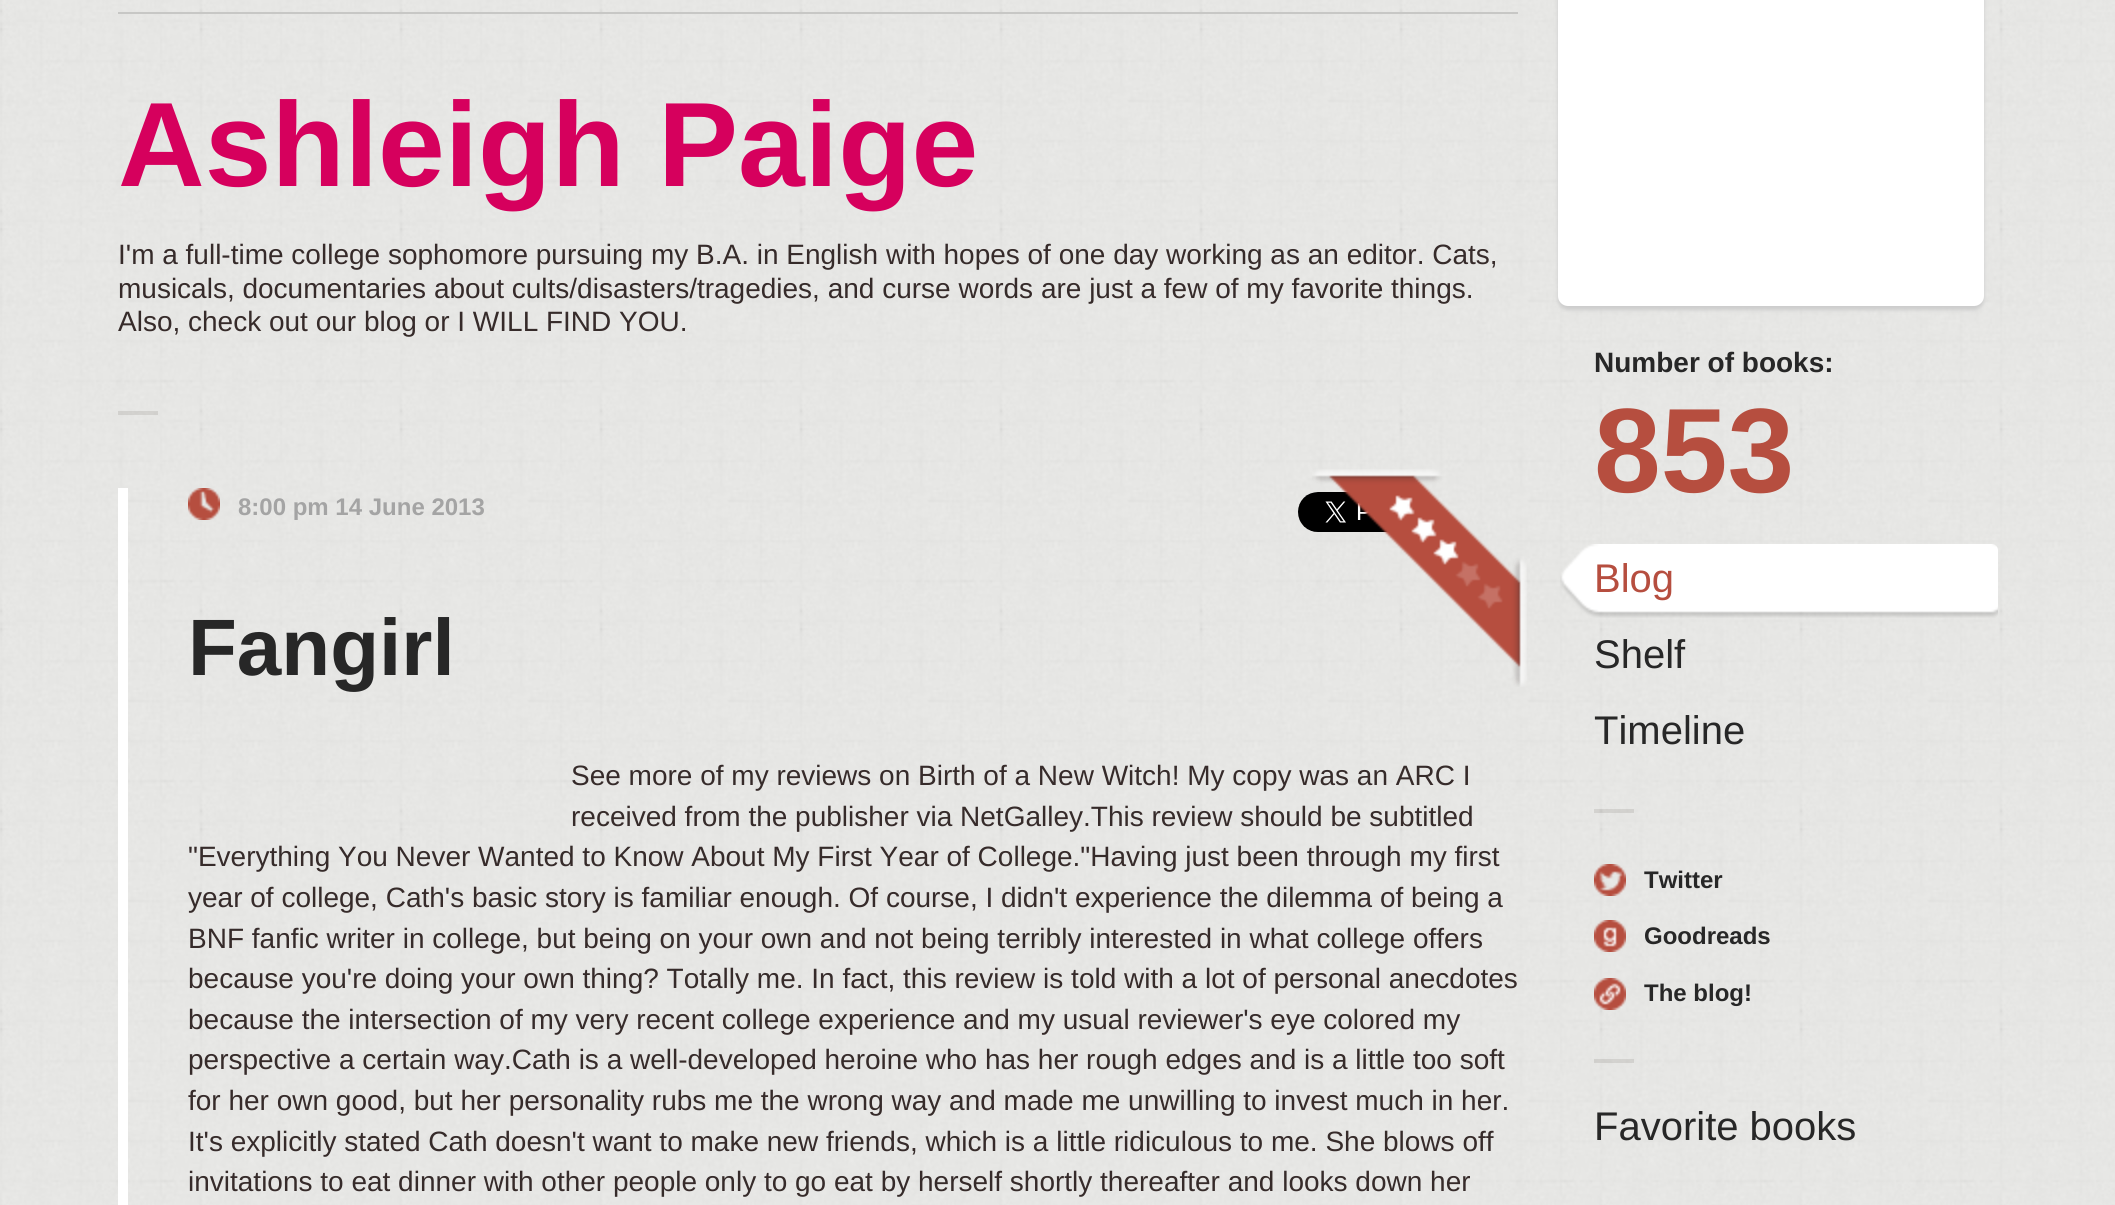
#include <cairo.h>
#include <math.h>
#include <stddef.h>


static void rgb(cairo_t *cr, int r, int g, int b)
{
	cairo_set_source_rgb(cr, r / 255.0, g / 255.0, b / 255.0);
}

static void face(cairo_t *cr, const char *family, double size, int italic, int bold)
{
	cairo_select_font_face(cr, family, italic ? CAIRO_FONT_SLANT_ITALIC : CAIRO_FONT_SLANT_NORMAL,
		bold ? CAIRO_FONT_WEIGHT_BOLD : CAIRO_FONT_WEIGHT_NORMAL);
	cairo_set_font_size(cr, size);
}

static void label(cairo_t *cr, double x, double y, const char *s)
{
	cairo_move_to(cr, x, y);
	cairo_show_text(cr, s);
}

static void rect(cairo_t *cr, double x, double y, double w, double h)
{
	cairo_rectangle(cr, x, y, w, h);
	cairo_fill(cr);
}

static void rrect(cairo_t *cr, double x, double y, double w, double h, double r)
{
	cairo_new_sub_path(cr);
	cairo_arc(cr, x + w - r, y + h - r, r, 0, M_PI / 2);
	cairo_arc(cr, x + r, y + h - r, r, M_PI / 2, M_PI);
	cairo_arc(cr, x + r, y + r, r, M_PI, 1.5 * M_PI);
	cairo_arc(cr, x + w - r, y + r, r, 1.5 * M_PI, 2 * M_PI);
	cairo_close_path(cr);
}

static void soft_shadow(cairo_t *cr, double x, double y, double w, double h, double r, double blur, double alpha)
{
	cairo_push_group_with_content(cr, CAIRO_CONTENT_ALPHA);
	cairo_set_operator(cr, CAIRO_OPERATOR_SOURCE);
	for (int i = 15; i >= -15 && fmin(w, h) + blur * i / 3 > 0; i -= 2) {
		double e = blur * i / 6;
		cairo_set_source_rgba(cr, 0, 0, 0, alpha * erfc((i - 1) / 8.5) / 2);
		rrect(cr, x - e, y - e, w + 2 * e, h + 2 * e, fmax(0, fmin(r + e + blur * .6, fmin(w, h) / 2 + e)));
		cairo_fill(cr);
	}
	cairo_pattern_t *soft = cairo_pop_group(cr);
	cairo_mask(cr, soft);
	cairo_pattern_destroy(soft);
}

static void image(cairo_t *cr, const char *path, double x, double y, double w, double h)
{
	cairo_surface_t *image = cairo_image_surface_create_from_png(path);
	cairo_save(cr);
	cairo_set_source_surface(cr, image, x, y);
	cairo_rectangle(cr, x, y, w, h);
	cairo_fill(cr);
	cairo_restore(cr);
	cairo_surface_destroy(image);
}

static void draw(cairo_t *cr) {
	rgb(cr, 255, 255, 255);
	cairo_paint(cr);
	image(cr, "image0.png", 0, 0, 2115, 1205);
	rgb(cr, 199, 199, 197);
	rect(cr, 118, 12, 1400, 2);
	face(cr, "Liberation Sans", 120, 0, 1);
	rgb(cr, 214, 0, 93);
	label(cr, 118, 186, "Ashleigh Paige");
	face(cr, "Liberation Sans", 28, 0, 0);
	rgb(cr, 54, 43, 42);
	label(cr, 118, 264, "I'm a full-time college sophomore pursuing my B.A. in English with hopes of one day working as an editor. Cats,");
	label(cr, 118, 298, "musicals, documentaries about cults/disasters/tragedies, and curse words are just a few of my favorite things.");
	label(cr, 118, 331, "Also, check out our blog or I WILL FIND YOU.");
	cairo_set_source_rgba(cr, 0.208, 0.173, 0.137, 0.11);
	rect(cr, 118, 411, 40, 4);
	rgb(cr, 255, 255, 255);
	rect(cr, 118, 488, 10, 717);
	image(cr, "image1.png", 188, 488, 32, 32);
	face(cr, "Liberation Sans", 24, 0, 1);
	rgb(cr, 164, 164, 164);
	label(cr, 238, 515, "8:00 pm 14 June 2013");
	image(cr, "image2.png", 1298, 492, 91, 40);
	image(cr, "image3.png", 1312, 469, 215, 218);
	face(cr, "Liberation Sans", 80, 0, 1);
	rgb(cr, 39, 39, 39);
	label(cr, 188, 675, "Fangirl");
	face(cr, "Liberation Sans", 28, 0, 0);
	rgb(cr, 54, 43, 42);
	label(cr, 571, 785, "See more of my reviews on Birth of a New Witch! My copy was an ARC I");
	label(cr, 571, 826, "received from the publisher via NetGalley.This review should be subtitled");
	label(cr, 188, 866, "\"Everything You Never Wanted to Know About My First Year of College.\"Having just been through my first");
	label(cr, 188, 907, "year of college, Cath's basic story is familiar enough. Of course, I didn't experience the dilemma of being a");
	label(cr, 188, 948, "BNF fanfic writer in college, but being on your own and not being terribly interested in what college offers");
	label(cr, 188, 988, "because you're doing your own thing? Totally me. In fact, this review is told with a lot of personal anecdotes");
	label(cr, 188, 1029, "because the intersection of my very recent college experience and my usual reviewer's eye colored my");
	label(cr, 188, 1069, "perspective a certain way.Cath is a well-developed heroine who has her rough edges and is a little too soft");
	label(cr, 188, 1110, "for her own good, but her personality rubs me the wrong way and made me unwilling to invest much in her.");
	label(cr, 188, 1151, "It's explicitly stated Cath doesn't want to make new friends, which is a little ridiculous to me. She blows off");
	label(cr, 188, 1191, "invitations to eat dinner with other people only to go eat by herself shortly thereafter and looks down her");
	rgb(cr, 204, 204, 204);
	soft_shadow(cr, 1558, -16, 426, 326, 10, 2, 1);
	rgb(cr, 255, 255, 255);
	rrect(cr, 1558, -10, 426, 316, 10);
	cairo_fill(cr);
	face(cr, "Liberation Sans", 28, 0, 1);
	rgb(cr, 39, 39, 39);
	label(cr, 1594, 372, "Number of books:");
	face(cr, "Liberation Sans", 120, 0, 1);
	rgb(cr, 182, 78, 63);
	label(cr, 1594, 492, "853");
	image(cr, "image4.png", 1560, 544, 438, 74);
	face(cr, "Liberation Sans", 40, 0, 0);
	label(cr, 1594, 592, "Blog");
	rgb(cr, 39, 39, 39);
	label(cr, 1594, 668, "Shelf");
	label(cr, 1594, 744, "Timeline");
	cairo_set_source_rgba(cr, 0.208, 0.173, 0.137, 0.11);
	rect(cr, 1594, 809, 40, 4);
	image(cr, "image5.png", 1594, 864, 32, 32);
	face(cr, "Liberation Sans", 24, 0, 1);
	rgb(cr, 39, 39, 39);
	label(cr, 1644, 888, "Twitter");
	image(cr, "image6.png", 1594, 920, 32, 32);
	label(cr, 1644, 944, "Goodreads");
	image(cr, "image7.png", 1594, 978, 32, 32);
	label(cr, 1644, 1001, "The blog!");
	cairo_set_source_rgba(cr, 0.208, 0.173, 0.137, 0.11);
	rect(cr, 1594, 1059, 40, 4);
	face(cr, "Liberation Sans", 40, 0, 0);
	rgb(cr, 39, 39, 39);
	label(cr, 1594, 1140, "Favorite books");
}

int main(void) {
	cairo_surface_t *surface = cairo_image_surface_create(CAIRO_FORMAT_RGB24, 2115, 1205);
	cairo_t *cr = cairo_create(surface);
	cairo_font_options_t *options = cairo_font_options_create();
	cairo_font_options_set_hint_metrics(options, CAIRO_HINT_METRICS_OFF);
	cairo_font_options_set_hint_style(options, CAIRO_HINT_STYLE_NONE);
	cairo_set_font_options(cr, options);
	cairo_set_miter_limit(cr, 4);
	draw(cr);
	cairo_surface_write_to_png(surface, "render.png");
	cairo_font_options_destroy(options);
	cairo_destroy(cr);
	cairo_surface_destroy(surface);
	return 0;
}
